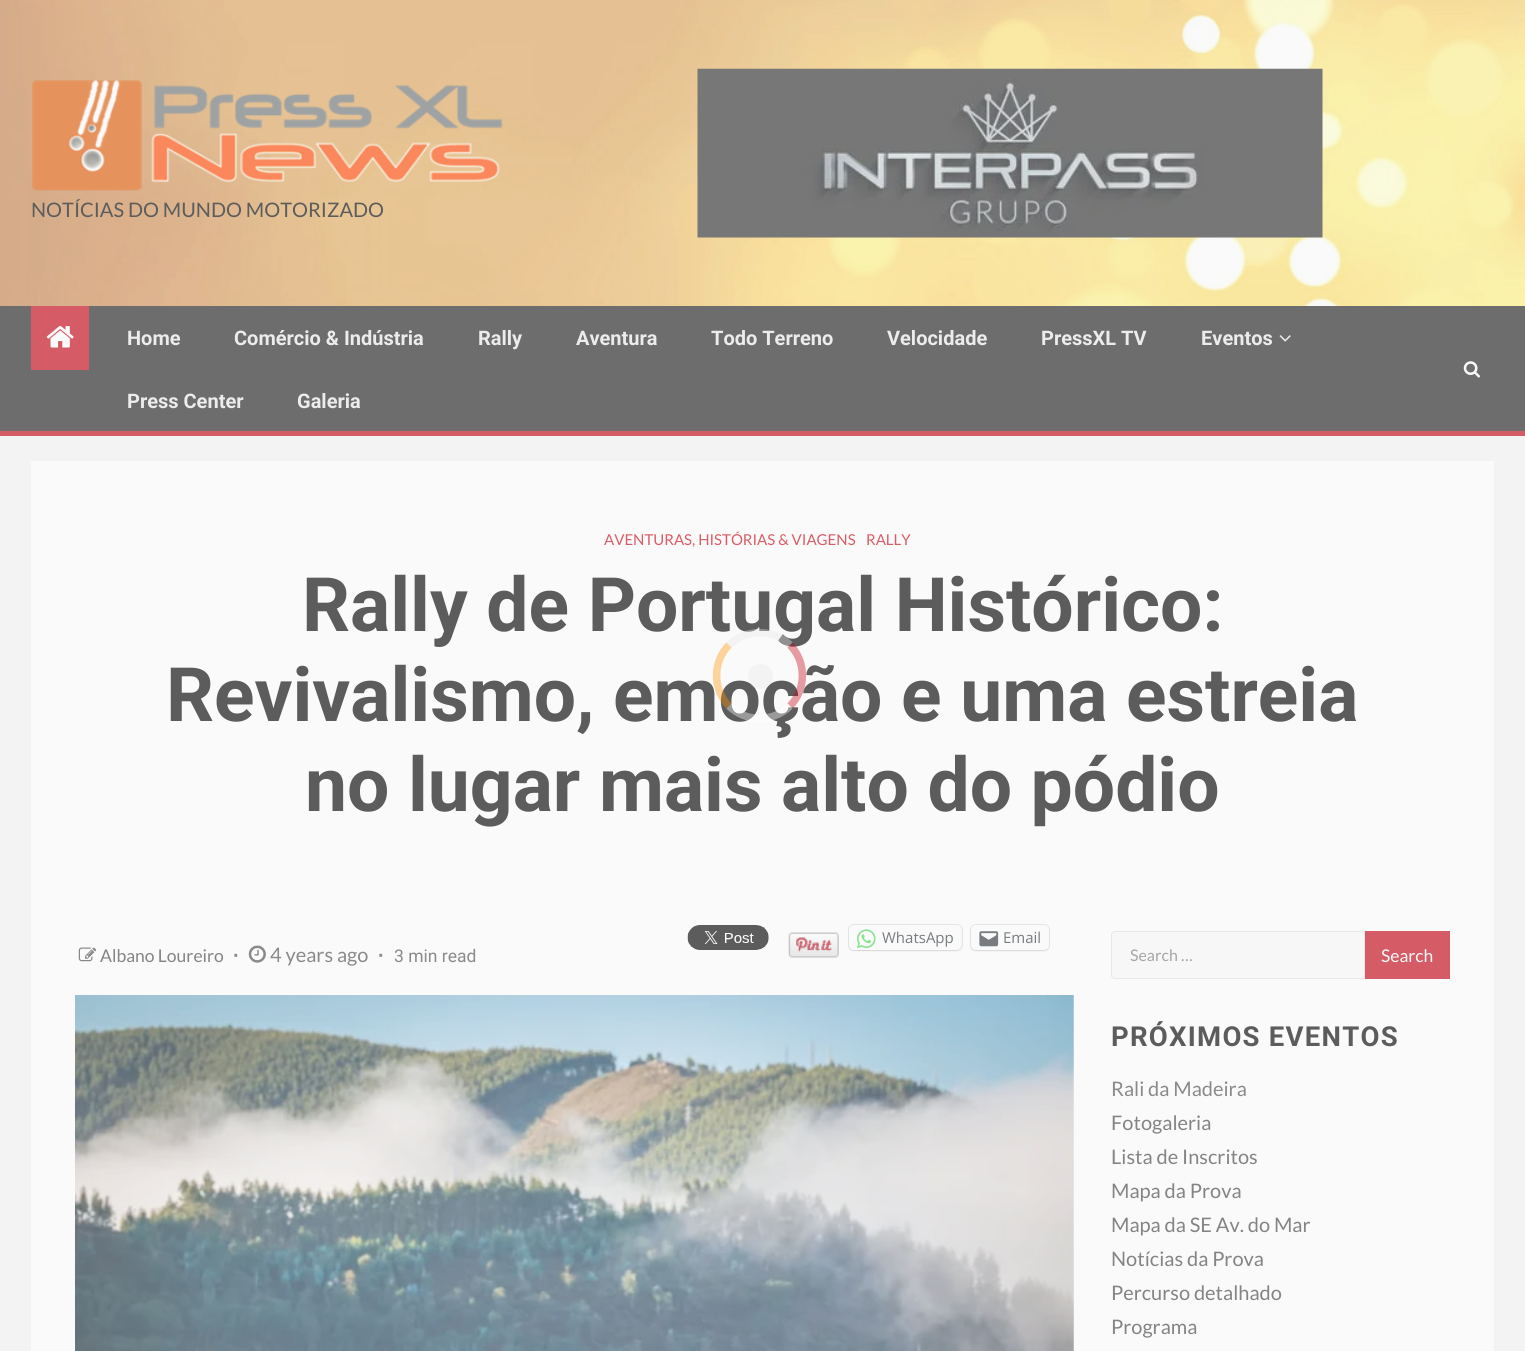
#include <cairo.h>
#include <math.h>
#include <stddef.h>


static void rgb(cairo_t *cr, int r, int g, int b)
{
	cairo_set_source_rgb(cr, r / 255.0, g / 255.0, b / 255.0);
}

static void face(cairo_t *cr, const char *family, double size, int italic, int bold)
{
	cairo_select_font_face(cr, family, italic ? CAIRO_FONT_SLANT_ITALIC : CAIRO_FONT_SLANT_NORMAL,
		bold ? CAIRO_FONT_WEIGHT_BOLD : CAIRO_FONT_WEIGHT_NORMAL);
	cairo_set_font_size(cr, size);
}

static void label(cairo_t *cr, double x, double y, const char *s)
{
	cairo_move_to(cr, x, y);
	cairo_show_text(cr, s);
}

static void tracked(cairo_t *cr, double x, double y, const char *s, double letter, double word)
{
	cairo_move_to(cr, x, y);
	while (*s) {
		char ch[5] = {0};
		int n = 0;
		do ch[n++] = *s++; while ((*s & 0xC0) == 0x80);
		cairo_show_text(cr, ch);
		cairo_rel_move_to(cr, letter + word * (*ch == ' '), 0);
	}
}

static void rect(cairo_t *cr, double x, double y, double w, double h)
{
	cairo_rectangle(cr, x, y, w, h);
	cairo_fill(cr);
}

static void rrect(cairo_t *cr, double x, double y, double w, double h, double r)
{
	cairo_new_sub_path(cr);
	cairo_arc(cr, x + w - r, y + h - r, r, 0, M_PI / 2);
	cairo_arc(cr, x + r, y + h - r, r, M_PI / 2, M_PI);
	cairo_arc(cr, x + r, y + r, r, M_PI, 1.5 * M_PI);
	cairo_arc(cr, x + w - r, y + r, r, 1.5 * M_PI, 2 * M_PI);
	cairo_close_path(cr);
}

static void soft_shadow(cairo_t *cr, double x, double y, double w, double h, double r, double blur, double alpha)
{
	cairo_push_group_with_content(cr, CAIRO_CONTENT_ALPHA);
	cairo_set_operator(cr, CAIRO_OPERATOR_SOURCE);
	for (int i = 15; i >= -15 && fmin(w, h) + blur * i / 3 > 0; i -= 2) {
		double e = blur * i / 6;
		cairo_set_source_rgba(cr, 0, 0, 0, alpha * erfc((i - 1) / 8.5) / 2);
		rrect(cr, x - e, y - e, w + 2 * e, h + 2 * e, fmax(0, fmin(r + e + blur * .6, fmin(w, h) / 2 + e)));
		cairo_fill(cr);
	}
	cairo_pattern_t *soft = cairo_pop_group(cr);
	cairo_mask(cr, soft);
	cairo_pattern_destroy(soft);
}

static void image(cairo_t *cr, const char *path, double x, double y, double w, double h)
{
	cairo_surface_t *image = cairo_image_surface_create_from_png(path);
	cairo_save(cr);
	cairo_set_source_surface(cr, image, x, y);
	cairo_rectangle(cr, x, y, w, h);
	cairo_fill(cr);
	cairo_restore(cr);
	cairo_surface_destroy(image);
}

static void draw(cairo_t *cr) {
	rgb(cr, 243, 243, 243);
	cairo_paint(cr);
	image(cr, "image0.png", 0, 0, 1525, 306);
	image(cr, "image1.png", 32, 80, 471, 111);
	face(cr, "Lato", 20, 0, 0);
	rgb(cr, 92, 92, 92);
	label(cr, 31, 217, "NOTÍCIAS DO MUNDO MOTORIZADO");
	image(cr, "image2.png", 697, 68, 626, 170);
	rgb(cr, 109, 109, 109);
	rect(cr, 0, 306, 1525, 125);
	rgb(cr, 213, 92, 102);
	rect(cr, 0, 431, 1525, 5);
	rect(cr, 31, 306, 58, 64);
	image(cr, "image3.png", 46, 326, 28, 22);
	face(cr, "Roboto", 20, 0, 1);
	rgb(cr, 236, 236, 236);
	label(cr, 127, 345, "Home");
	label(cr, 234, 345, "Comércio & Indústria");
	label(cr, 478, 345, "Rally");
	label(cr, 576, 345, "Aventura");
	label(cr, 711, 345, "Todo Terreno");
	label(cr, 887, 345, "Velocidade");
	label(cr, 1041, 345, "PressXL TV");
	label(cr, 1201, 345, "Eventos");
	image(cr, "image4.png", 1279, 335, 12, 7);
	label(cr, 127, 408, "Press Center");
	label(cr, 297, 408, "Galeria");
	image(cr, "image5.png", 1463, 361, 17, 17);
	rgb(cr, 250, 250, 250);
	rect(cr, 31, 461, 1463, 890);
	face(cr, "Lato", 15, 0, 0);
	rgb(cr, 219, 92, 102);
	label(cr, 604, 545, "AVENTURAS, HISTÓRIAS & VIAGENS");
	label(cr, 866, 545, "RALLY");
	face(cr, "Roboto", 75, 0, 1);
	rgb(cr, 92, 92, 92);
	label(cr, 302, 631, "Rally de Portugal Histórico:");
	label(cr, 166, 721, "Revivalismo, emoção e uma estreia");
	label(cr, 305, 811, "no lugar mais alto do pódio");
	image(cr, "image6.png", 687, 925, 82, 25);
	image(cr, "image7.png", 788, 932, 51, 26);
	rrect(cr, 848.5, 924.5, 114, 26, 5.5);
	rgb(cr, 231, 231, 231);
	cairo_set_line_width(cr, 1);
	cairo_stroke(cr);
	rgb(cr, 92, 92, 92);
	soft_shadow(cr, 849, 926, 112, 25, 5, 1, 0.12);
	rgb(cr, 250, 250, 250);
	rrect(cr, 849, 925, 112, 25, 5);
	cairo_fill(cr);
	image(cr, "image8.png", 857, 929, 19, 19);
	face(cr, "Open Sans", 15, 0, 0);
	rgb(cr, 120, 124, 127);
	label(cr, 882, 943, "WhatsApp");
	rrect(cr, 970.5, 924.5, 79, 26, 5.5);
	rgb(cr, 231, 231, 231);
	cairo_stroke(cr);
	rgb(cr, 92, 92, 92);
	soft_shadow(cr, 971, 926, 78, 25, 5, 1, 0.12);
	rgb(cr, 250, 250, 250);
	rrect(cr, 971, 925, 78, 25, 5);
	cairo_fill(cr);
	image(cr, "image9.png", 979, 931, 20, 16);
	rgb(cr, 120, 124, 127);
	label(cr, 1003, 943, "Email");
	image(cr, "image10.png", 78, 947, 19, 15);
	face(cr, "Lato", 17.5, 0, 0);
	rgb(cr, 132, 132, 132);
	label(cr, 100, 962, "Albano Loureiro");
	face(cr, "Liberation Sans", 20, 0, 1);
	rgb(cr, 138, 138, 138);
	label(cr, 233, 962, "∙");
	image(cr, "image11.png", 248, 945, 18, 18);
	face(cr, "Lato", 20, 0, 0);
	label(cr, 270, 962, "4 years ago");
	face(cr, "Liberation Sans", 20, 0, 1);
	label(cr, 378, 962, "∙");
	face(cr, "Roboto", 17.5, 0, 0);
	label(cr, 394, 962, "3 min read");
	image(cr, "image12.png", 75, 995, 999, 356);
	rgb(cr, 247, 247, 247);
	cairo_new_path(cr);
	cairo_move_to(cr, 1115, 931.5);
	cairo_line_to(cr, 1364.5, 931.5);
	cairo_line_to(cr, 1364.5, 978.5);
	cairo_line_to(cr, 1115, 978.5);
	cairo_curve_to(cr, 1113, 978.5, 1111.5, 977, 1111.5, 975);
	cairo_line_to(cr, 1111.5, 935);
	cairo_curve_to(cr, 1111.5, 933, 1113, 931.5, 1115, 931.5);
	cairo_close_path(cr);
	cairo_fill_preserve(cr);
	rgb(cr, 232, 232, 232);
	cairo_stroke(cr);
	face(cr, "Lato", 16, 0, 0);
	rgb(cr, 165, 165, 165);
	label(cr, 1130, 961, "Search …");
	rgb(cr, 213, 92, 102);
	rect(cr, 1365, 931, 85, 48);
	face(cr, "Lato", 17.5, 0, 0);
	rgb(cr, 250, 250, 250);
	label(cr, 1381, 962, "Search");
	face(cr, "Roboto", 27.5, 0, 1);
	rgb(cr, 92, 92, 92);
	tracked(cr, 1111, 1046, "PRÓXIMOS EVENTOS", 1.25, 0);
	face(cr, "Lato", 20, 0, 0);
	rgb(cr, 138, 138, 138);
	label(cr, 1111, 1096, "Rali da Madeira");
	rgb(cr, 132, 132, 132);
	label(cr, 1111, 1130, "Fotogaleria");
	label(cr, 1111, 1164, "Lista de Inscritos");
	label(cr, 1111, 1198, "Mapa da Prova");
	label(cr, 1111, 1232, "Mapa da SE Av. do Mar");
	label(cr, 1111, 1266, "Notícias da Prova");
	label(cr, 1111, 1300, "Percurso detalhado");
	label(cr, 1111, 1334, "Programa");
	cairo_new_path(cr);
	cairo_move_to(cr, 790, 645);
	cairo_curve_to(cr, 806.5, 661.5, 806.5, 689.5, 790, 706);
	cairo_set_source_rgba(cr, 0.765, 0, 0.063, 0.38);
	cairo_set_line_width(cr, 7.5);
	cairo_stroke(cr);
	cairo_new_path(cr);
	cairo_move_to(cr, 729, 706);
	cairo_curve_to(cr, 712.5, 689.5, 712.5, 661.5, 729, 645);
	cairo_set_source_rgba(cr, 1, 0.596, 0, 0.38);
	cairo_stroke(cr);
	cairo_new_path(cr);
	cairo_move_to(cr, 729, 645);
	cairo_curve_to(cr, 745.5, 628.5, 773.5, 628.5, 790, 645);
	cairo_set_source_rgba(cr, 0.906, 0.906, 0.906, 0.38);
	cairo_stroke(cr);
	cairo_new_path(cr);
	cairo_move_to(cr, 790, 706);
	cairo_curve_to(cr, 773.5, 722.5, 745.5, 722.5, 729, 706);
	cairo_set_source_rgba(cr, 1, 1, 1, 0.38);
	cairo_stroke(cr);
	cairo_set_source_rgba(cr, 0.906, 0.906, 0.906, 0.38);
	cairo_arc(cr, 760.5, 676.5, 12.5, 0, 2 * M_PI);
	cairo_fill(cr);
}

int main(void) {
	cairo_surface_t *surface = cairo_image_surface_create(CAIRO_FORMAT_RGB24, 1525, 1351);
	cairo_t *cr = cairo_create(surface);
	cairo_font_options_t *options = cairo_font_options_create();
	cairo_font_options_set_hint_metrics(options, CAIRO_HINT_METRICS_OFF);
	cairo_font_options_set_hint_style(options, CAIRO_HINT_STYLE_NONE);
	cairo_set_font_options(cr, options);
	cairo_set_miter_limit(cr, 4);
	draw(cr);
	cairo_surface_write_to_png(surface, "render.png");
	cairo_font_options_destroy(options);
	cairo_destroy(cr);
	cairo_surface_destroy(surface);
	return 0;
}
